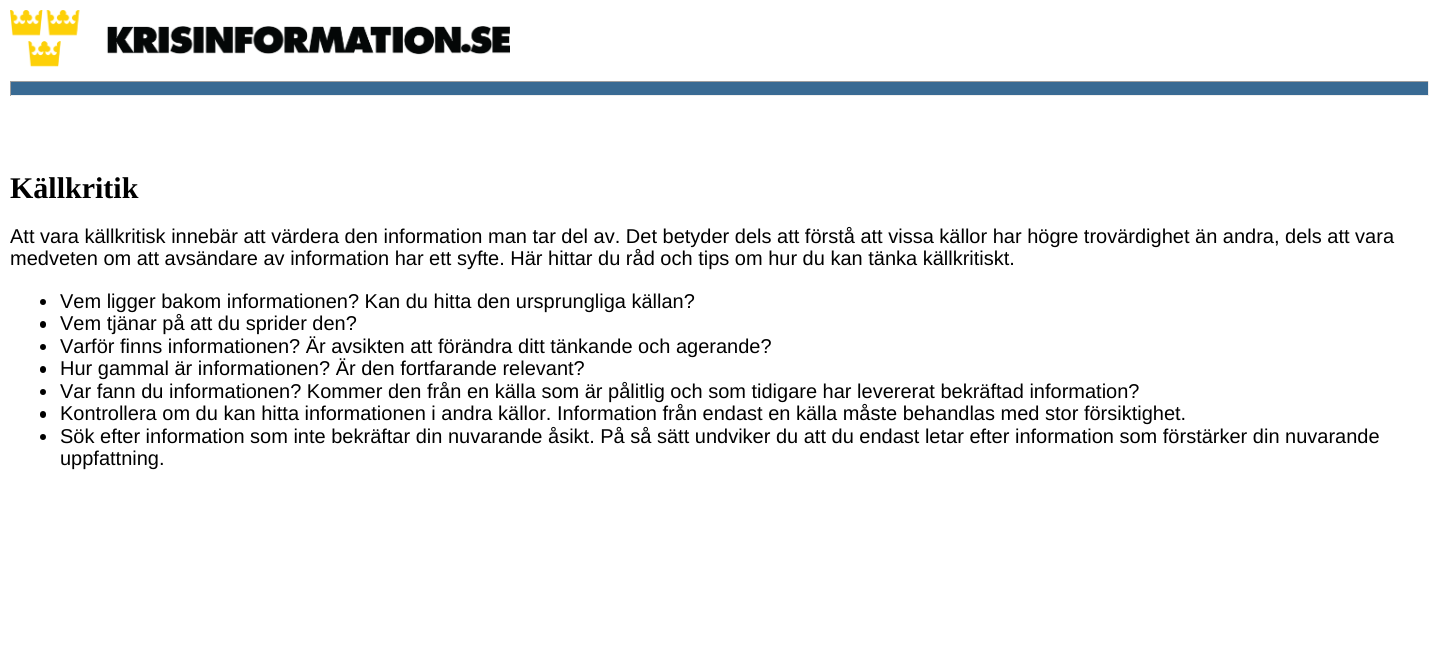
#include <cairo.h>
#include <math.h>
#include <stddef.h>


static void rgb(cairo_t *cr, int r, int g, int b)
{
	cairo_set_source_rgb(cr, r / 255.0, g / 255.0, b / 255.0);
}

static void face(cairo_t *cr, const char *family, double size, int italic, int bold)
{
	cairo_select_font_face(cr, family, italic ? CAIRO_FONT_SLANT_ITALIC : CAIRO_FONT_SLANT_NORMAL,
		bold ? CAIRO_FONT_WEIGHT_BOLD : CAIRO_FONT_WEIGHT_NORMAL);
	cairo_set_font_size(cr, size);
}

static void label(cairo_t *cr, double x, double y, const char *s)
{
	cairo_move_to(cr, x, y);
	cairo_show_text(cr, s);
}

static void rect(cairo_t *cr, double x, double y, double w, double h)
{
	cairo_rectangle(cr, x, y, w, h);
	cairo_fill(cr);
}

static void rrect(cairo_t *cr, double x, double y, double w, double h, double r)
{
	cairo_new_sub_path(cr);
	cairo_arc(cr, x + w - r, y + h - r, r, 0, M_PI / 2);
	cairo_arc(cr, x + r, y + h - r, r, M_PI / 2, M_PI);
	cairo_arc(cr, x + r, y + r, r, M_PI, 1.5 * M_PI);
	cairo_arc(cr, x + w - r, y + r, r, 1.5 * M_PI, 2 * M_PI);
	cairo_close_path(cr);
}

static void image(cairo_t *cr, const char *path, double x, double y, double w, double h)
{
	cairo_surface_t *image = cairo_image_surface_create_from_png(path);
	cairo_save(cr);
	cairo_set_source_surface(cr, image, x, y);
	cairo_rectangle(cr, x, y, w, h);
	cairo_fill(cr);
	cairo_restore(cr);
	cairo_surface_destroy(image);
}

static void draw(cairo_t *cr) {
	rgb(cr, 255, 255, 255);
	cairo_paint(cr);
	image(cr, "image0.png", 10, 10, 500, 57);
	rgb(cr, 57, 106, 147);
	rect(cr, 11, 82, 1417, 13);
	rgb(cr, 159, 159, 159);
	rect(cr, 10, 81, 1419, 1);
	rgb(cr, 238, 238, 238);
	rect(cr, 1428, 81, 1, 15);
	rect(cr, 10, 95, 1419, 1);
	rgb(cr, 159, 159, 159);
	rect(cr, 10, 81, 1, 15);
	face(cr, "Liberation Serif", 30, 0, 1);
	rgb(cr, 0, 0, 0);
	label(cr, 10, 198, "Källkritik");
	face(cr, "Liberation Sans", 20, 0, 0);
	label(cr, 10, 243, "Att vara källkritisk innebär att värdera den information man tar del av. Det betyder dels att förstå att vissa källor har högre trovärdighet än andra, dels att vara");
	label(cr, 10, 265, "medveten om att avsändare av information har ett syfte. Här hittar du råd och tips om hur du kan tänka källkritiskt.");
	cairo_new_path(cr);
	cairo_arc(cr, 43, 302, 3, 0, 2 * M_PI);
	cairo_fill(cr);
	label(cr, 60, 308, "Vem ligger bakom informationen? Kan du hitta den ursprungliga källan?");
	rrect(cr, 40, 321, 6, 7, 3);
	cairo_fill(cr);
	label(cr, 60, 330, "Vem tjänar på att du sprider den?");
	cairo_new_path(cr);
	cairo_arc(cr, 43, 347, 3, 0, 2 * M_PI);
	cairo_fill(cr);
	label(cr, 60, 353, "Varför finns informationen? Är avsikten att förändra ditt tänkande och agerande?");
	rrect(cr, 40, 366, 6, 7, 3);
	cairo_fill(cr);
	label(cr, 60, 375, "Hur gammal är informationen? Är den fortfarande relevant?");
	cairo_new_path(cr);
	cairo_arc(cr, 43, 392, 3, 0, 2 * M_PI);
	cairo_fill(cr);
	label(cr, 60, 398, "Var fann du informationen? Kommer den från en källa som är pålitlig och som tidigare har levererat bekräftad information?");
	rrect(cr, 40, 411, 6, 7, 3);
	cairo_fill(cr);
	label(cr, 60, 420, "Kontrollera om du kan hitta informationen i andra källor. Information från endast en källa måste behandlas med stor försiktighet.");
	cairo_new_path(cr);
	cairo_arc(cr, 43, 437, 3, 0, 2 * M_PI);
	cairo_fill(cr);
	label(cr, 60, 443, "Sök efter information som inte bekräftar din nuvarande åsikt. På så sätt undviker du att du endast letar efter information som förstärker din nuvarande");
	label(cr, 60, 465, "uppfattning.");
}

int main(void) {
	cairo_surface_t *surface = cairo_image_surface_create(CAIRO_FORMAT_RGB24, 1438, 662);
	cairo_t *cr = cairo_create(surface);
	cairo_font_options_t *options = cairo_font_options_create();
	cairo_font_options_set_hint_metrics(options, CAIRO_HINT_METRICS_OFF);
	cairo_font_options_set_hint_style(options, CAIRO_HINT_STYLE_NONE);
	cairo_set_font_options(cr, options);
	cairo_set_miter_limit(cr, 4);
	draw(cr);
	cairo_surface_write_to_png(surface, "render.png");
	cairo_font_options_destroy(options);
	cairo_destroy(cr);
	cairo_surface_destroy(surface);
	return 0;
}
